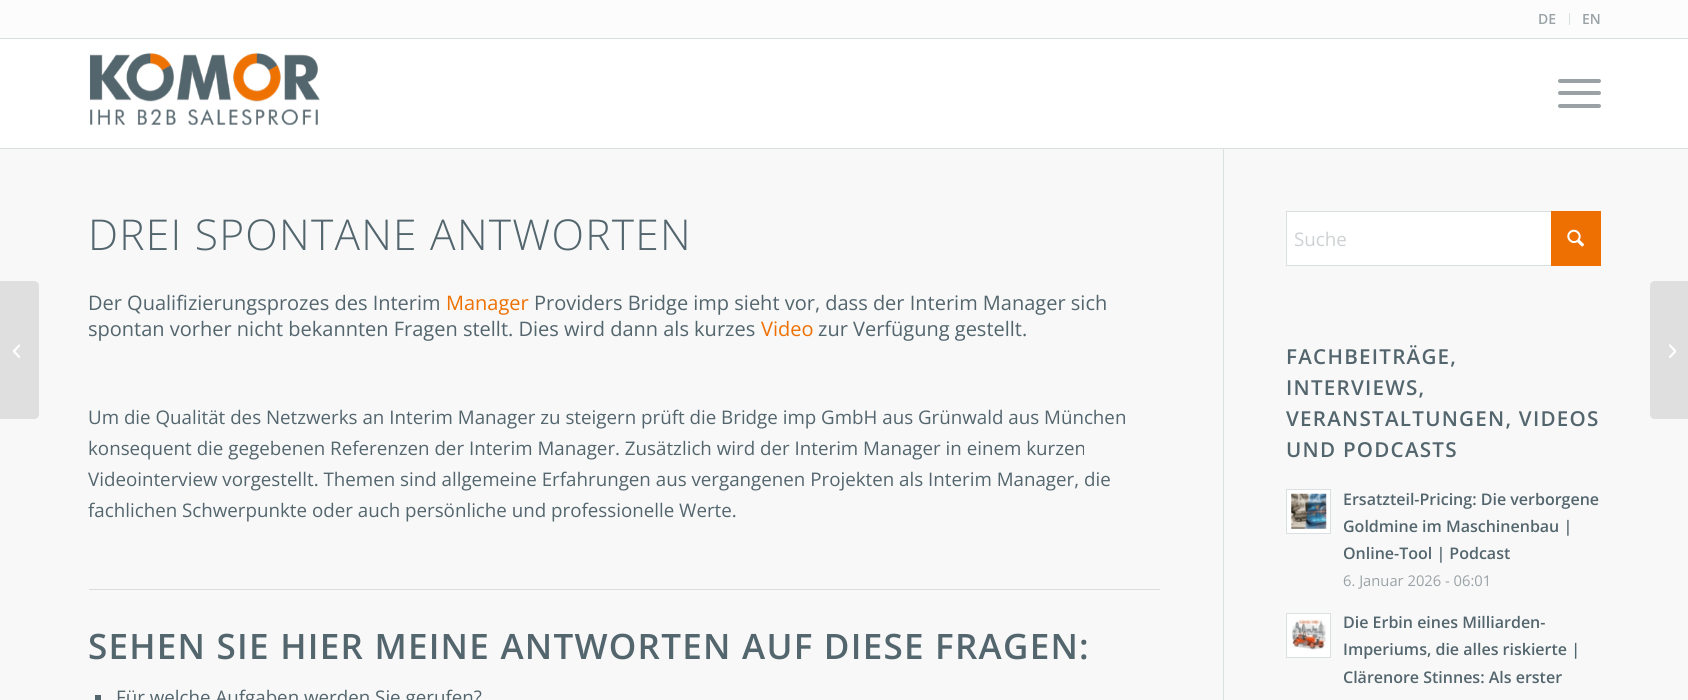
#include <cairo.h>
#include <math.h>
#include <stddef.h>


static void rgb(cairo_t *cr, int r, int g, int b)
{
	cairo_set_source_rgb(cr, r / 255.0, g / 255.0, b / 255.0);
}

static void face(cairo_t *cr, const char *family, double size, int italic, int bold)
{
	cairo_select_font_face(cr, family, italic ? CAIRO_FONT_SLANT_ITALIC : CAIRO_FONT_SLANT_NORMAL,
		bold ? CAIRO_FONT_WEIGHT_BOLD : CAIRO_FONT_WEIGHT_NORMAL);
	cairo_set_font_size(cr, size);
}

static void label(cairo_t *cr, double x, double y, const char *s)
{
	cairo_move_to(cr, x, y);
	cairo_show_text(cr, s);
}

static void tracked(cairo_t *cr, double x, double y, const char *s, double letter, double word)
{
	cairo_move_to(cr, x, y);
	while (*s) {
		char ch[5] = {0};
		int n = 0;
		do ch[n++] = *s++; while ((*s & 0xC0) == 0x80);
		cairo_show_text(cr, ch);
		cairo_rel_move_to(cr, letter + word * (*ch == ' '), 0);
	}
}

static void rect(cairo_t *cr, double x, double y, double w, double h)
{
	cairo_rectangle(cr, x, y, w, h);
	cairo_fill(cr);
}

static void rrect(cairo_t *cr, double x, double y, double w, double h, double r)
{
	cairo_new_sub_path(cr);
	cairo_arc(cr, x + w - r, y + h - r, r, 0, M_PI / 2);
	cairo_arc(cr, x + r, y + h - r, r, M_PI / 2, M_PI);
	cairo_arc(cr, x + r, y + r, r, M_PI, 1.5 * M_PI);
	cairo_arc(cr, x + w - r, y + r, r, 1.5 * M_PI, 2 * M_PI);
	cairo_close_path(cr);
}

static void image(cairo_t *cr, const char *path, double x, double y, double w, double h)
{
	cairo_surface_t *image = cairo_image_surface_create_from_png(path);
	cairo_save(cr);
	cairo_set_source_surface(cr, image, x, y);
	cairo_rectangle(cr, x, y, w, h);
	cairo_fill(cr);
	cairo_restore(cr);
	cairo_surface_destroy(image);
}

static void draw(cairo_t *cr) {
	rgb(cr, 255, 255, 255);
	cairo_paint(cr);
	rgb(cr, 252, 252, 252);
	rect(cr, 0, 0, 1688, 38);
	rgb(cr, 218, 223, 226);
	rect(cr, 0, 38, 1688, 1);
	rect(cr, 1569, 13, 1, 12);
	face(cr, "Open Sans SemiBold", 14, 0, 0);
	rgb(cr, 154, 162, 166);
	label(cr, 1538, 24, "DE");
	label(cr, 1582, 24, "EN");
	rgb(cr, 218, 223, 226);
	rect(cr, 0, 148, 1688, 1);
	image(cr, "image0.png", 89, 53, 231, 73);
	rgb(cr, 154, 162, 166);
	rrect(cr, 1558, 91, 43, 4, 2);
	cairo_fill(cr);
	rrect(cr, 1558, 79, 43, 4, 2);
	cairo_fill(cr);
	rrect(cr, 1558, 104, 43, 4, 2);
	cairo_fill(cr);
	rgb(cr, 248, 248, 248);
	rect(cr, 0, 149, 1688, 551);
	rgb(cr, 223, 223, 223);
	cairo_new_path(cr);
	cairo_move_to(cr, 0, 281);
	cairo_line_to(cr, 34, 281);
	cairo_curve_to(cr, 37, 281, 39, 283, 39, 286);
	cairo_line_to(cr, 39, 414);
	cairo_curve_to(cr, 39, 417, 37, 419, 34, 419);
	cairo_line_to(cr, 0, 419);
	cairo_close_path(cr);
	cairo_fill(cr);
	image(cr, "image1.png", 13, 344, 7, 14);
	rgb(cr, 218, 223, 226);
	rect(cr, 1223, 149, 1, 551);
	face(cr, "Open Sans Light", 42.5, 0, 0);
	rgb(cr, 83, 101, 109);
	tracked(cr, 88, 250, "DREI SPONTANE ANTWORTEN", 1.25, 0);
	face(cr, "Open Sans", 20, 0, 0);
	label(cr, 88, 310, "Der Qualifizierungsprozes des Interim");
	rgb(cr, 238, 112, 2);
	label(cr, 446, 310, "Manager");
	rgb(cr, 83, 101, 109);
	label(cr, 534, 310, "Providers Bridge imp sieht vor, dass der Interim Manager sich");
	label(cr, 88, 336, "spontan vorher nicht bekannten Fragen stellt. Dies wird dann als kurzes");
	rgb(cr, 238, 112, 2);
	label(cr, 761, 336, "Video");
	rgb(cr, 83, 101, 109);
	label(cr, 818, 336, "zur Verfügung gestellt.");
	face(cr, "Open Sans", 18.75, 0, 0);
	label(cr, 88, 424, "Um die Qualität des Netzwerks an Interim Manager zu steigern prüft die Bridge imp GmbH aus Grünwald aus München");
	label(cr, 88, 455, "konsequent die gegebenen Referenzen der Interim Manager. Zusätzlich wird der Interim Manager in einem kurzen");
	label(cr, 88, 486, "Videointerview vorgestellt. Themen sind allgemeine Erfahrungen aus vergangenen Projekten als Interim Manager, die");
	label(cr, 88, 517, "fachlichen Schwerpunkte oder auch persönliche und professionelle Werte.");
	rgb(cr, 221, 221, 221);
	rect(cr, 89, 589, 1071, 1);
	face(cr, "Open Sans SemiBold", 35, 0, 0);
	rgb(cr, 83, 101, 109);
	tracked(cr, 88, 659, "SEHEN SIE HIER MEINE ANTWORTEN AUF DIESE FRAGEN:", 1.25, 0);
	rect(cr, 95, 695, 6, 5);
	face(cr, "Open Sans", 18.75, 0, 0);
	label(cr, 116, 704, "Für welche Aufgaben werden Sie gerufen?");
	rgb(cr, 255, 255, 255);
	rect(cr, 1287, 212, 264, 53);
	cairo_rectangle(cr, 1286.5, 211.5, 314, 54);
	rgb(cr, 218, 223, 226);
	cairo_set_line_width(cr, 1);
	cairo_stroke(cr);
	rgb(cr, 238, 112, 2);
	rect(cr, 1551, 211, 50, 55);
	rgb(cr, 205, 209, 211);
	label(cr, 1294, 246, "Suche");
	image(cr, "image2.png", 1567, 229, 17, 18);
	face(cr, "Open Sans SemiBold", 20.6, 0, 0);
	rgb(cr, 83, 101, 109);
	tracked(cr, 1286, 364, "FACHBEITRÄGE,", 1.25, 0);
	tracked(cr, 1286, 395, "INTERVIEWS,", 1.25, 0);
	tracked(cr, 1286, 426, "VERANSTALTUNGEN, VIDEOS", 1.25, 0);
	tracked(cr, 1286, 457, "UND PODCASTS", 1.25, 0);
	rgb(cr, 255, 255, 255);
	cairo_rectangle(cr, 1286.5, 489.5, 44, 44);
	cairo_fill_preserve(cr);
	rgb(cr, 218, 223, 226);
	cairo_stroke(cr);
	image(cr, "image3.png", 1291, 493, 36, 36);
	face(cr, "Open Sans SemiBold", 16, 0, 0);
	rgb(cr, 83, 101, 109);
	label(cr, 1343, 505, "Ersatzteil-Pricing: Die verborgene");
	label(cr, 1343, 532, "Goldmine im Maschinenbau |");
	label(cr, 1343, 559, "Online-Tool | Podcast");
	face(cr, "Open Sans", 14.75, 0, 0);
	rgb(cr, 154, 162, 166);
	label(cr, 1343, 586, "6. Januar 2026 - 06:01");
	rgb(cr, 255, 255, 255);
	cairo_rectangle(cr, 1286.5, 613.5, 44, 44);
	cairo_fill_preserve(cr);
	rgb(cr, 218, 223, 226);
	cairo_stroke(cr);
	image(cr, "image4.png", 1292, 619, 34, 31);
	face(cr, "Open Sans SemiBold", 16, 0, 0);
	rgb(cr, 83, 101, 109);
	label(cr, 1343, 628, "Die Erbin eines Milliarden-");
	label(cr, 1343, 655, "Imperiums, die alles riskierte |");
	label(cr, 1343, 683, "Clärenore Stinnes: Als erster");
	rgb(cr, 223, 223, 223);
	cairo_new_path(cr);
	cairo_move_to(cr, 1655, 281);
	cairo_line_to(cr, 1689, 281);
	cairo_line_to(cr, 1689, 419);
	cairo_line_to(cr, 1655, 419);
	cairo_curve_to(cr, 1652, 419, 1650, 417, 1650, 414);
	cairo_line_to(cr, 1650, 286);
	cairo_curve_to(cr, 1650, 283, 1652, 281, 1655, 281);
	cairo_close_path(cr);
	cairo_fill(cr);
	image(cr, "image5.png", 1669, 344, 7, 14);
}

int main(void) {
	cairo_surface_t *surface = cairo_image_surface_create(CAIRO_FORMAT_RGB24, 1688, 700);
	cairo_t *cr = cairo_create(surface);
	cairo_font_options_t *options = cairo_font_options_create();
	cairo_font_options_set_hint_metrics(options, CAIRO_HINT_METRICS_OFF);
	cairo_font_options_set_hint_style(options, CAIRO_HINT_STYLE_NONE);
	cairo_set_font_options(cr, options);
	cairo_set_miter_limit(cr, 4);
	draw(cr);
	cairo_surface_write_to_png(surface, "render.png");
	cairo_font_options_destroy(options);
	cairo_destroy(cr);
	cairo_surface_destroy(surface);
	return 0;
}
